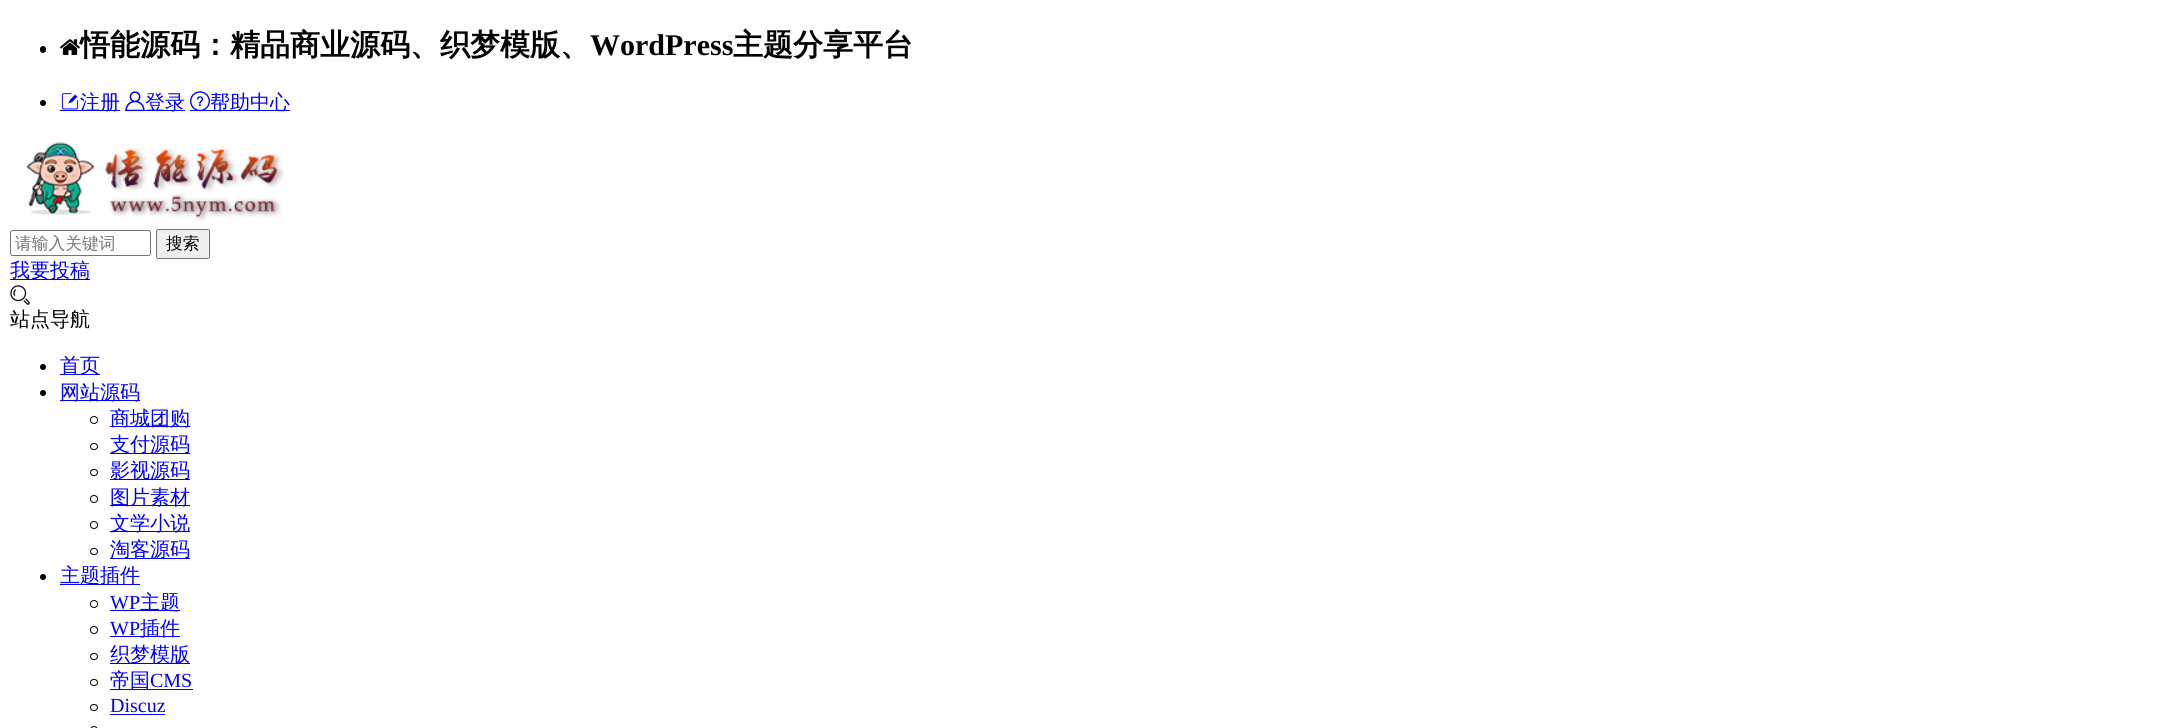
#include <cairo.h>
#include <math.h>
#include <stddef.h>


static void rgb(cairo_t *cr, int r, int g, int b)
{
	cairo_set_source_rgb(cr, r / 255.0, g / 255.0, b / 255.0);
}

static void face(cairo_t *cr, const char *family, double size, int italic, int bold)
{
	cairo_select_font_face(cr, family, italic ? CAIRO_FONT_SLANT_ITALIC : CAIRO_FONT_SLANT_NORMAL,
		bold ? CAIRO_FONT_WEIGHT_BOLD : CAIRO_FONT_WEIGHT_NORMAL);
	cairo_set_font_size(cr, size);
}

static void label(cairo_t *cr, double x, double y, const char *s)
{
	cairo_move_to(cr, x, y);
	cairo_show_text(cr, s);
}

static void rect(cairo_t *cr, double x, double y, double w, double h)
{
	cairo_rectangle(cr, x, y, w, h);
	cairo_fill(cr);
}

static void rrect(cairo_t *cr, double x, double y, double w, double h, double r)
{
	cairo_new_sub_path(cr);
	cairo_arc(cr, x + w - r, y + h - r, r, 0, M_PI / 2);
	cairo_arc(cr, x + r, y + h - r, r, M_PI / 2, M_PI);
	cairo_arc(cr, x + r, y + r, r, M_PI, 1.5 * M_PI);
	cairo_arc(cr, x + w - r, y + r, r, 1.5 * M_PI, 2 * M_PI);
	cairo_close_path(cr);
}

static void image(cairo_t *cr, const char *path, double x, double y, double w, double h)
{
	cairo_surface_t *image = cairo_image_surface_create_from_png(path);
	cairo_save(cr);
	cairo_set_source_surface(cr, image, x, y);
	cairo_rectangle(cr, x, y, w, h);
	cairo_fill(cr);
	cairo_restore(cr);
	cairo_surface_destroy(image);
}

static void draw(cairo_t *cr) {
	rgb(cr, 255, 255, 255);
	cairo_paint(cr);
	rgb(cr, 0, 0, 0);
	rrect(cr, 40, 46, 6, 7, 3);
	cairo_fill(cr);
	image(cr, "image0.png", 60, 39, 20, 16);
	face(cr, "WenQuanYi Zen Hei", 30, 0, 1);
	label(cr, 80, 55, "悟能源码：精品商业源码、织梦模版、");
	face(cr, "Liberation Serif", 30, 0, 1);
	label(cr, 590, 55, "WordPress");
	face(cr, "WenQuanYi Zen Hei", 30, 0, 1);
	label(cr, 733, 55, "主题分享平台");
	cairo_new_path(cr);
	cairo_arc(cr, 43, 103, 3, 0, 2 * M_PI);
	cairo_fill(cr);
	image(cr, "image1.png", 61, 93, 18, 17);
	rgb(cr, 0, 0, 238);
	rect(cr, 60, 110, 60, 1);
	face(cr, "WenQuanYi Zen Hei Medium", 20, 0, 0);
	label(cr, 80, 109, "注册");
	rect(cr, 125, 110, 60, 1);
	image(cr, "image2.png", 125, 91, 20, 21);
	label(cr, 145, 109, "登录");
	rect(cr, 190, 110, 100, 1);
	image(cr, "image3.png", 190, 91, 20, 21);
	label(cr, 210, 109, "帮助中心");
	image(cr, "image4.png", 26, 142, 258, 80);
	rrect(cr, 10.5, 230.5, 140, 25, 2);
	rgb(cr, 118, 118, 118);
	cairo_set_line_width(cr, 1);
	cairo_stroke(cr);
	face(cr, "WenQuanYi Zen Hei Medium", 16.75, 0, 0);
	rgb(cr, 117, 117, 117);
	label(cr, 15, 249, "请输入关键词");
	rgb(cr, 239, 239, 239);
	rrect(cr, 156.5, 229.5, 53, 29, 2);
	cairo_fill_preserve(cr);
	rgb(cr, 118, 118, 118);
	cairo_stroke(cr);
	rgb(cr, 0, 0, 0);
	label(cr, 166, 249, "搜索");
	rgb(cr, 0, 0, 238);
	rect(cr, 10, 279, 80, 1);
	face(cr, "WenQuanYi Zen Hei Medium", 20, 0, 0);
	label(cr, 10, 277, "我要投稿");
	image(cr, "image5.png", 10, 285, 20, 20);
	rgb(cr, 0, 0, 0);
	label(cr, 10, 326, "站点导航");
	cairo_new_path(cr);
	cairo_arc(cr, 43, 367, 3, 0, 2 * M_PI);
	cairo_fill(cr);
	rgb(cr, 0, 0, 238);
	rect(cr, 60, 374, 40, 1);
	label(cr, 60, 372, "首页");
	rgb(cr, 0, 0, 0);
	cairo_new_path(cr);
	cairo_arc(cr, 43, 393, 3, 0, 2 * M_PI);
	cairo_fill(cr);
	rgb(cr, 0, 0, 238);
	rect(cr, 60, 400, 80, 1);
	label(cr, 60, 399, "网站源码");
	cairo_new_path(cr);
	cairo_arc(cr, 94, 420, 3.5, 0, 2 * M_PI);
	rgb(cr, 0, 0, 0);
	cairo_stroke(cr);
	rgb(cr, 0, 0, 238);
	rect(cr, 110, 426, 80, 1);
	label(cr, 110, 425, "商城团购");
	rrect(cr, 90.5, 443.5, 7, 6, 3);
	rgb(cr, 0, 0, 0);
	cairo_stroke(cr);
	rgb(cr, 0, 0, 238);
	rect(cr, 110, 453, 80, 1);
	label(cr, 110, 451, "支付源码");
	rrect(cr, 90.5, 469.5, 7, 6, 3);
	rgb(cr, 0, 0, 0);
	cairo_stroke(cr);
	rgb(cr, 0, 0, 238);
	rect(cr, 110, 479, 80, 1);
	label(cr, 110, 477, "影视源码");
	cairo_new_path(cr);
	cairo_arc(cr, 94, 499, 3.5, 0, 2 * M_PI);
	rgb(cr, 0, 0, 0);
	cairo_stroke(cr);
	rgb(cr, 0, 0, 238);
	rect(cr, 110, 505, 80, 1);
	label(cr, 110, 504, "图片素材");
	cairo_new_path(cr);
	cairo_arc(cr, 94, 525, 3.5, 0, 2 * M_PI);
	rgb(cr, 0, 0, 0);
	cairo_stroke(cr);
	rgb(cr, 0, 0, 238);
	rect(cr, 110, 531, 80, 1);
	label(cr, 110, 530, "文学小说");
	rrect(cr, 90.5, 548.5, 7, 6, 3);
	rgb(cr, 0, 0, 0);
	cairo_stroke(cr);
	rgb(cr, 0, 0, 238);
	rect(cr, 110, 558, 80, 1);
	label(cr, 110, 556, "淘客源码");
	rgb(cr, 0, 0, 0);
	cairo_new_path(cr);
	cairo_arc(cr, 43, 577, 3, 0, 2 * M_PI);
	cairo_fill(cr);
	rgb(cr, 0, 0, 238);
	rect(cr, 60, 584, 80, 1);
	label(cr, 60, 582, "主题插件");
	cairo_new_path(cr);
	cairo_arc(cr, 94, 604, 3.5, 0, 2 * M_PI);
	rgb(cr, 0, 0, 0);
	cairo_stroke(cr);
	face(cr, "Liberation Serif", 20, 0, 0);
	rgb(cr, 0, 0, 238);
	label(cr, 110, 609, "WP");
	rect(cr, 110, 610, 70, 1);
	face(cr, "WenQuanYi Zen Hei Medium", 20, 0, 0);
	label(cr, 140, 609, "主题");
	cairo_new_path(cr);
	cairo_arc(cr, 94, 630, 3.5, 0, 2 * M_PI);
	rgb(cr, 0, 0, 0);
	cairo_stroke(cr);
	face(cr, "Liberation Serif", 20, 0, 0);
	rgb(cr, 0, 0, 238);
	label(cr, 110, 635, "WP");
	rect(cr, 110, 636, 70, 1);
	face(cr, "WenQuanYi Zen Hei Medium", 20, 0, 0);
	label(cr, 140, 635, "插件");
	rrect(cr, 90.5, 653.5, 7, 6, 3);
	rgb(cr, 0, 0, 0);
	cairo_stroke(cr);
	rgb(cr, 0, 0, 238);
	rect(cr, 110, 663, 80, 1);
	label(cr, 110, 661, "织梦模版");
	rrect(cr, 90.5, 679.5, 7, 6, 3);
	rgb(cr, 0, 0, 0);
	cairo_stroke(cr);
	rgb(cr, 0, 0, 238);
	rect(cr, 110, 689, 83, 1);
	label(cr, 110, 687, "帝国");
	face(cr, "Liberation Serif", 20, 0, 0);
	label(cr, 150, 687, "CMS");
	rrect(cr, 90.5, 704.5, 7, 6, 3);
	rgb(cr, 0, 0, 0);
	cairo_stroke(cr);
	rgb(cr, 0, 0, 238);
	label(cr, 110, 712, "Discuz");
	rect(cr, 110, 714, 55, 1);
	rrect(cr, 90.5, 726.5, 7, 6, 3.5);
	rgb(cr, 0, 0, 0);
	cairo_stroke(cr);
}

int main(void) {
	cairo_surface_t *surface = cairo_image_surface_create(CAIRO_FORMAT_RGB24, 2181, 728);
	cairo_t *cr = cairo_create(surface);
	cairo_font_options_t *options = cairo_font_options_create();
	cairo_font_options_set_hint_metrics(options, CAIRO_HINT_METRICS_OFF);
	cairo_font_options_set_hint_style(options, CAIRO_HINT_STYLE_NONE);
	cairo_set_font_options(cr, options);
	cairo_set_miter_limit(cr, 4);
	draw(cr);
	cairo_surface_write_to_png(surface, "render.png");
	cairo_font_options_destroy(options);
	cairo_destroy(cr);
	cairo_surface_destroy(surface);
	return 0;
}
